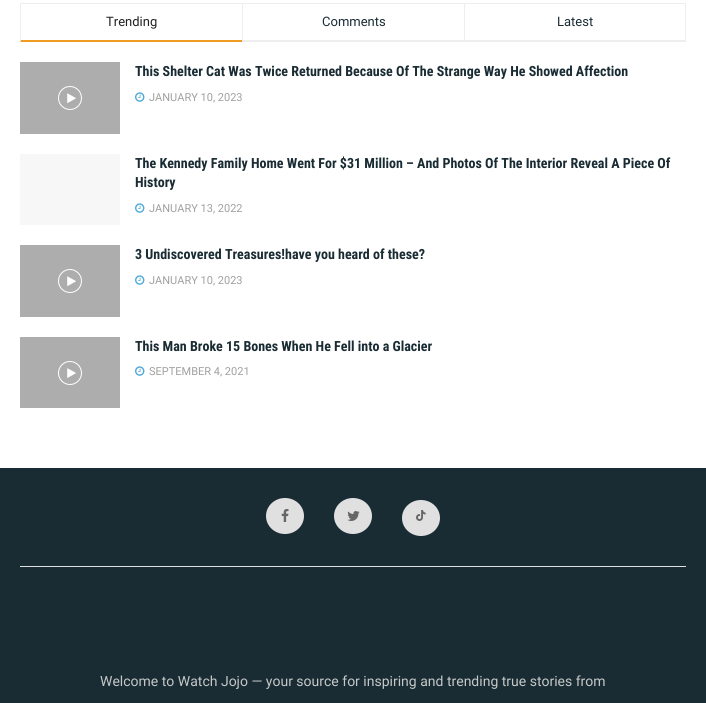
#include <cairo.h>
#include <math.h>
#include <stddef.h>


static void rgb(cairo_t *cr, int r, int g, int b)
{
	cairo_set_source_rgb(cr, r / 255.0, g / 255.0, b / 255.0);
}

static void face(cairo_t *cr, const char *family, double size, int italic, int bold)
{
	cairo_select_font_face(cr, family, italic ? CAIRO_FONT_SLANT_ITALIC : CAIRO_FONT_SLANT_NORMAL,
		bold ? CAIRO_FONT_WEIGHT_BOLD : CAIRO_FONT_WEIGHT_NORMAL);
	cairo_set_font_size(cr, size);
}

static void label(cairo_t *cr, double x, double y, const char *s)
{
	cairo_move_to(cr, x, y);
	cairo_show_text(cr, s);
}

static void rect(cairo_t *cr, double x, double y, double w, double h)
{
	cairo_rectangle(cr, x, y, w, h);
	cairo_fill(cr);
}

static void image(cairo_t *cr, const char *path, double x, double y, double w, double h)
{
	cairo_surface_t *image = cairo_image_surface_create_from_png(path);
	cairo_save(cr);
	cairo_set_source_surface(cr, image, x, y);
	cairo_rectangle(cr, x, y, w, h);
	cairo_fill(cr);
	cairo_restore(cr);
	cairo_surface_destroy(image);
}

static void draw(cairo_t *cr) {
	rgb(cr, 255, 255, 255);
	cairo_paint(cr);
	rgb(cr, 238, 238, 238);
	rect(cr, 20, 3, 666, 1);
	rgb(cr, 240, 155, 33);
	cairo_new_path(cr);
	cairo_move_to(cr, 242, 42);
	cairo_line_to(cr, 20, 42);
	cairo_line_to(cr, 21, 40);
	cairo_line_to(cr, 242, 40);
	cairo_close_path(cr);
	cairo_fill(cr);
	rgb(cr, 238, 238, 238);
	cairo_new_path(cr);
	cairo_move_to(cr, 20, 42);
	cairo_line_to(cr, 20, 3);
	cairo_line_to(cr, 21, 4);
	cairo_line_to(cr, 21, 40);
	cairo_close_path(cr);
	cairo_fill(cr);
	face(cr, "Roboto", 13, 0, 0);
	rgb(cr, 33, 33, 33);
	label(cr, 106, 26, "Trending");
	rgb(cr, 238, 238, 238);
	rect(cr, 242, 40, 222, 2);
	rect(cr, 242, 3, 1, 39);
	rgb(cr, 25, 43, 51);
	label(cr, 322, 26, "Comments");
	rgb(cr, 238, 238, 238);
	rect(cr, 685, 3, 1, 39);
	rect(cr, 464, 40, 222, 2);
	rect(cr, 464, 3, 1, 39);
	rgb(cr, 25, 43, 51);
	label(cr, 557, 26, "Latest");
	rgb(cr, 173, 173, 173);
	rect(cr, 20, 62, 100, 72);
	cairo_new_path(cr);
	cairo_arc(cr, 70, 98, 11.5, 0, 2 * M_PI);
	rgb(cr, 255, 255, 255);
	cairo_set_line_width(cr, 1);
	cairo_stroke(cr);
	image(cr, "image0.png", 67, 93, 9, 10);
	face(cr, "Roboto Condensed", 14, 0, 1);
	rgb(cr, 25, 43, 51);
	label(cr, 135, 76, "This Shelter Cat Was Twice Returned Because Of The Strange Way He Showed Affection");
	image(cr, "image1.png", 135, 92, 10, 10);
	face(cr, "Roboto", 11, 0, 0);
	rgb(cr, 160, 160, 160);
	label(cr, 149, 101, "JANUARY 10, 2023");
	rgb(cr, 247, 247, 247);
	rect(cr, 20, 154, 100, 71);
	face(cr, "Roboto Condensed", 14, 0, 1);
	rgb(cr, 25, 43, 51);
	label(cr, 135, 168, "The Kennedy Family Home Went For $31 Million – And Photos Of The Interior Reveal A Piece Of");
	label(cr, 135, 187, "History");
	image(cr, "image1.png", 135, 203, 10, 10);
	face(cr, "Roboto", 11, 0, 0);
	rgb(cr, 160, 160, 160);
	label(cr, 149, 212, "JANUARY 13, 2022");
	rgb(cr, 173, 173, 173);
	rect(cr, 20, 245, 100, 72);
	cairo_new_path(cr);
	cairo_arc(cr, 70, 281, 11.5, 0, 2 * M_PI);
	rgb(cr, 255, 255, 255);
	cairo_stroke(cr);
	image(cr, "image0.png", 67, 276, 9, 10);
	face(cr, "Roboto Condensed", 14, 0, 1);
	rgb(cr, 25, 43, 51);
	label(cr, 135, 259, "3 Undiscovered Treasures!have you heard of these?");
	image(cr, "image1.png", 135, 275, 10, 10);
	face(cr, "Roboto", 11, 0, 0);
	rgb(cr, 160, 160, 160);
	label(cr, 149, 284, "JANUARY 10, 2023");
	rgb(cr, 173, 173, 173);
	rect(cr, 20, 337, 100, 71);
	cairo_new_path(cr);
	cairo_arc(cr, 70, 373, 11.5, 0, 2 * M_PI);
	rgb(cr, 255, 255, 255);
	cairo_stroke(cr);
	image(cr, "image2.png", 67, 368, 9, 10);
	face(cr, "Roboto Condensed", 14, 0, 1);
	rgb(cr, 25, 43, 51);
	label(cr, 135, 351, "This Man Broke 15 Bones When He Fell into a Glacier");
	image(cr, "image1.png", 135, 366, 10, 10);
	face(cr, "Roboto", 11, 0, 0);
	rgb(cr, 160, 160, 160);
	label(cr, 149, 375, "SEPTEMBER 4, 2021");
	rgb(cr, 25, 43, 51);
	rect(cr, 0, 468, 706, 235);
	rgb(cr, 224, 224, 224);
	rect(cr, 20, 566, 666, 1);
	cairo_new_path(cr);
	cairo_move_to(cr, 285, 498);
	cairo_curve_to(cr, 295.5, 498, 304, 506, 304, 516);
	cairo_curve_to(cr, 304, 526, 295.5, 534, 285, 534);
	cairo_curve_to(cr, 274.5, 534, 266, 526, 266, 516);
	cairo_curve_to(cr, 266, 506, 274.5, 498, 285, 498);
	cairo_close_path(cr);
	cairo_fill(cr);
	image(cr, "image3.png", 281, 509, 8, 13);
	cairo_new_path(cr);
	cairo_move_to(cr, 353, 498);
	cairo_curve_to(cr, 363.5, 498, 372, 506, 372, 516);
	cairo_curve_to(cr, 372, 526, 363.5, 534, 353, 534);
	cairo_curve_to(cr, 342.5, 534, 334, 526, 334, 516);
	cairo_curve_to(cr, 334, 506, 342.5, 498, 353, 498);
	cairo_close_path(cr);
	cairo_fill(cr);
	image(cr, "image4.png", 347, 511, 13, 10);
	cairo_new_path(cr);
	cairo_move_to(cr, 421, 500);
	cairo_curve_to(cr, 431.5, 500, 440, 508, 440, 518);
	cairo_curve_to(cr, 440, 528, 431.5, 536, 421, 536);
	cairo_curve_to(cr, 410.5, 536, 402, 528, 402, 518);
	cairo_curve_to(cr, 402, 508, 410.5, 500, 421, 500);
	cairo_close_path(cr);
	cairo_fill(cr);
	image(cr, "image5.png", 416, 510, 10, 11);
	face(cr, "Roboto", 14, 0, 0);
	rgb(cr, 198, 200, 200);
	label(cr, 100, 686, "Welcome to Watch Jojo — your source for inspiring and trending true stories from");
}

int main(void) {
	cairo_surface_t *surface = cairo_image_surface_create(CAIRO_FORMAT_RGB24, 706, 703);
	cairo_t *cr = cairo_create(surface);
	cairo_font_options_t *options = cairo_font_options_create();
	cairo_font_options_set_hint_metrics(options, CAIRO_HINT_METRICS_OFF);
	cairo_font_options_set_hint_style(options, CAIRO_HINT_STYLE_NONE);
	cairo_set_font_options(cr, options);
	cairo_set_miter_limit(cr, 4);
	draw(cr);
	cairo_surface_write_to_png(surface, "render.png");
	cairo_font_options_destroy(options);
	cairo_destroy(cr);
	cairo_surface_destroy(surface);
	return 0;
}
